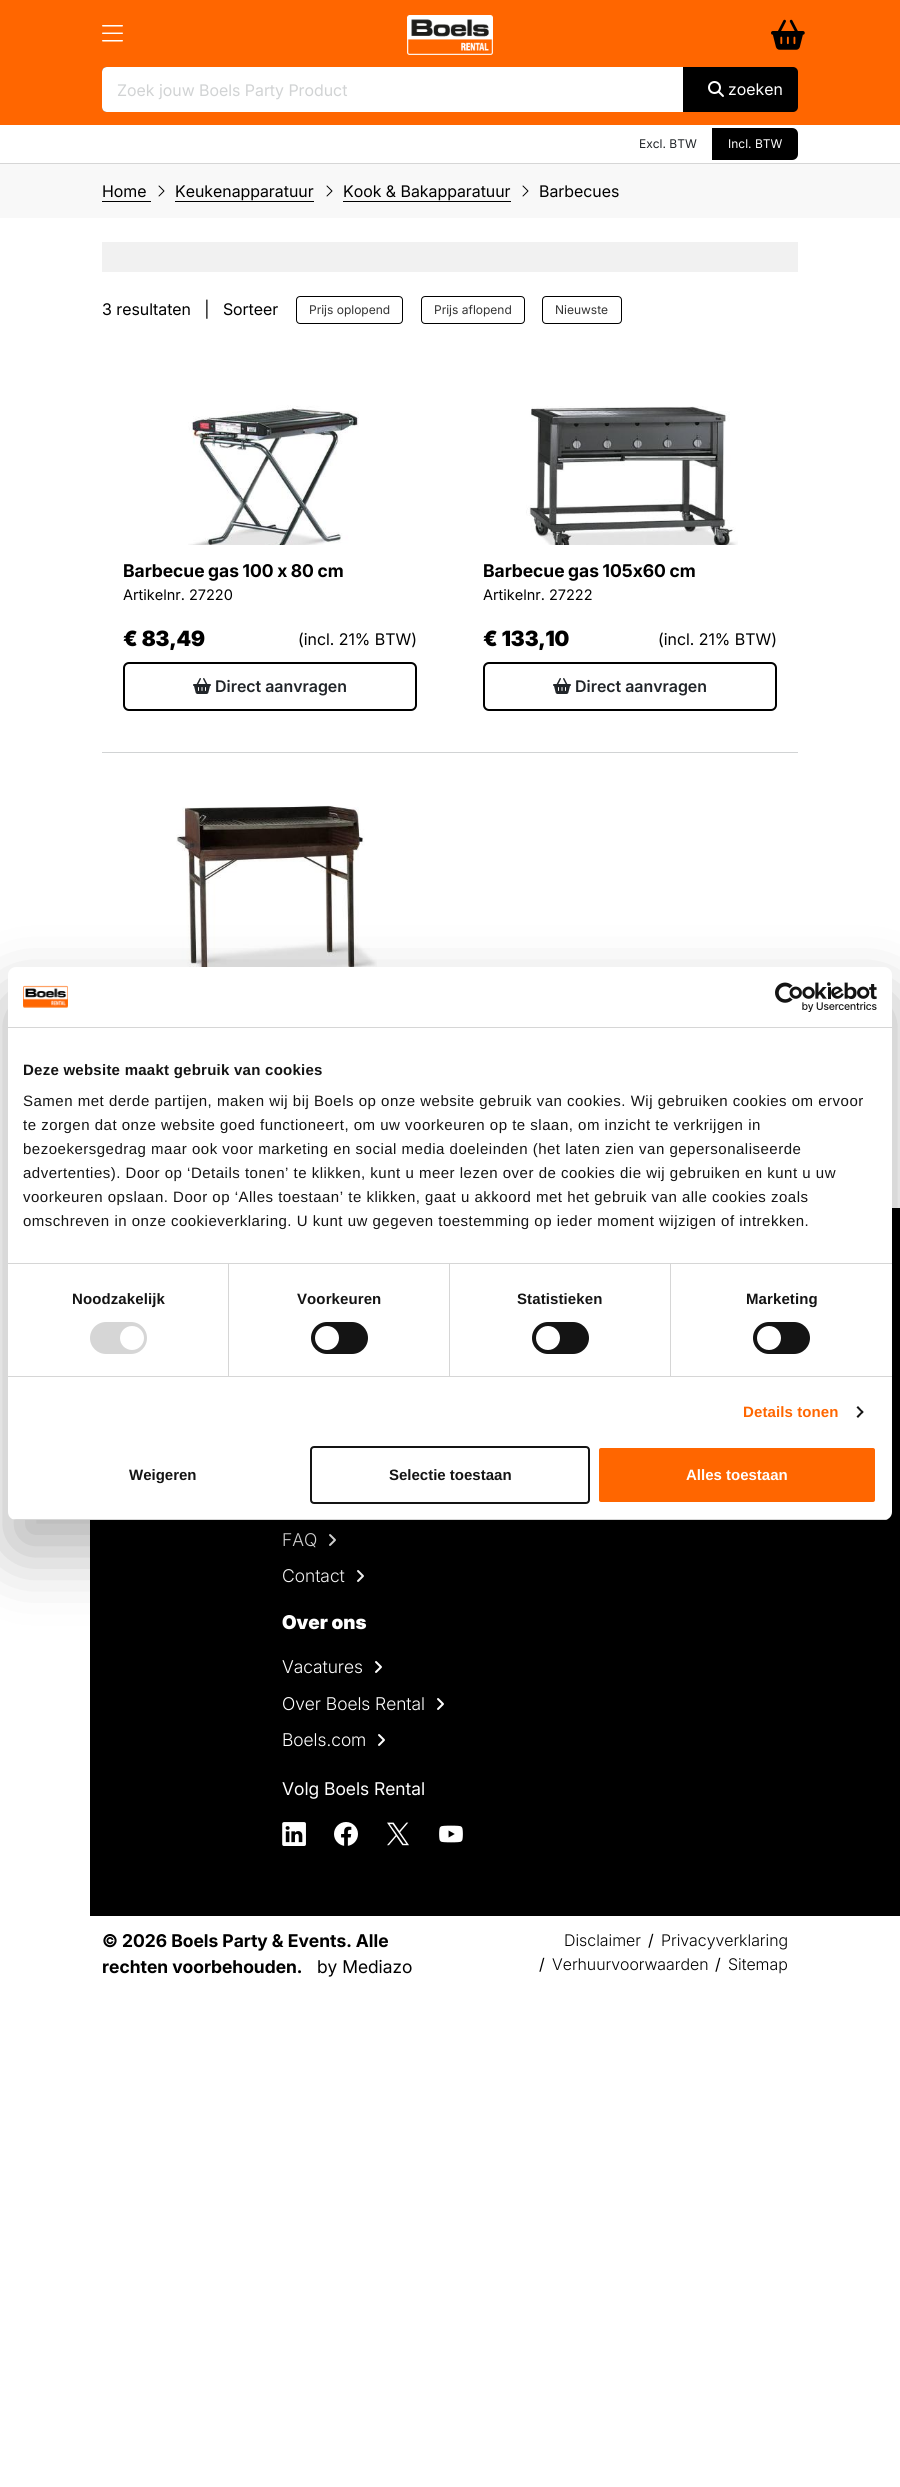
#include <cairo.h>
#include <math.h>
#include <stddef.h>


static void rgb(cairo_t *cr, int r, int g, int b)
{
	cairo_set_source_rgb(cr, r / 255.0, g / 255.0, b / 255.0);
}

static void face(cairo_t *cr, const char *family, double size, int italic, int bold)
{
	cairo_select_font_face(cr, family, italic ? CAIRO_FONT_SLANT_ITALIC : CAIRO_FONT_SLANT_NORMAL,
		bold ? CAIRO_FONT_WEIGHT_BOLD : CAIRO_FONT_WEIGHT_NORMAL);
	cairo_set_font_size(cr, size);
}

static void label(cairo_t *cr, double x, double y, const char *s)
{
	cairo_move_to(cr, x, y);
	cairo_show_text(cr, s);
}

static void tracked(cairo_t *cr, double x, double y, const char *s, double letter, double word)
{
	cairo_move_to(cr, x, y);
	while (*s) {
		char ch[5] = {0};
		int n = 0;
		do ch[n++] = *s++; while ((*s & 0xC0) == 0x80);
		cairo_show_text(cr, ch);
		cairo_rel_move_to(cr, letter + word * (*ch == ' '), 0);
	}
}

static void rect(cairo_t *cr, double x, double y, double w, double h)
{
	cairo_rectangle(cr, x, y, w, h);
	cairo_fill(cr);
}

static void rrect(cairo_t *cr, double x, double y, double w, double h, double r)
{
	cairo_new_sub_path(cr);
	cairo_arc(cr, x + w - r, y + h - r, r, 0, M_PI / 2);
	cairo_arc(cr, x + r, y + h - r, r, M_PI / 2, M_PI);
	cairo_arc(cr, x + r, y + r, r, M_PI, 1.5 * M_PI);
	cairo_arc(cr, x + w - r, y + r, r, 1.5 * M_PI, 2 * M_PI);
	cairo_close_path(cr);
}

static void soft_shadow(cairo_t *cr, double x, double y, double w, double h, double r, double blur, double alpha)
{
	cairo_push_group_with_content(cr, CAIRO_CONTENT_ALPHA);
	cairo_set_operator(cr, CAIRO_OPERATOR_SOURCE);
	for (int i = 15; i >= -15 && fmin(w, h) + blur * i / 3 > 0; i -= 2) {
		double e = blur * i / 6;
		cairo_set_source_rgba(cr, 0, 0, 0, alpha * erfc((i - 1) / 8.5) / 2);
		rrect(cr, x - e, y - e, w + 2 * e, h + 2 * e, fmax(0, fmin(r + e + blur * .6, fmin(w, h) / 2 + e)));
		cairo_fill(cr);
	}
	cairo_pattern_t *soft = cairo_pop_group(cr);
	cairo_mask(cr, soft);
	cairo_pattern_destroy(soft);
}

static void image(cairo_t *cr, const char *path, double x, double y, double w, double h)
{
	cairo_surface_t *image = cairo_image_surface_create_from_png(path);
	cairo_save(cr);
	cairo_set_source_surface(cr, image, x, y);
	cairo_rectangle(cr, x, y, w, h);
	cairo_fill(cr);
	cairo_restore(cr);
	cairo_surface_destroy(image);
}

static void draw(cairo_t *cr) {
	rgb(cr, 255, 255, 255);
	cairo_paint(cr);
	rgb(cr, 214, 214, 214);
	rect(cr, 0, 163, 900, 1);
	rgb(cr, 255, 102, 0);
	rect(cr, 0, 0, 900, 125);
	image(cr, "image0.png", 771, 19, 34, 31);
	image(cr, "image1.png", 407, 15, 86, 40);
	rgb(cr, 0, 0, 0);
	rrect(cr, 102, 67, 696, 45, 5);
	cairo_fill(cr);
	rgb(cr, 255, 255, 255);
	cairo_new_path(cr);
	cairo_move_to(cr, 107, 67);
	cairo_line_to(cr, 683, 67);
	cairo_line_to(cr, 683, 112);
	cairo_line_to(cr, 107, 112);
	cairo_curve_to(cr, 104, 112, 102, 110, 102, 107);
	cairo_line_to(cr, 102, 72);
	cairo_curve_to(cr, 102, 69, 104, 67, 107, 67);
	cairo_close_path(cr);
	cairo_fill(cr);
	face(cr, "Inter", 16, 0, 0);
	rgb(cr, 209, 211, 212);
	label(cr, 117, 96, "Zoek jouw Boels Party Product");
	image(cr, "image2.png", 708, 81, 16, 16);
	rgb(cr, 255, 255, 255);
	label(cr, 728, 95, "zoeken");
	image(cr, "image3.png", 102, 25, 21, 17);
	face(cr, "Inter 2", 12, 0, 0);
	rgb(cr, 33, 37, 41);
	label(cr, 639, 148, "Excl. BTW");
	rgb(cr, 0, 0, 0);
	cairo_new_path(cr);
	cairo_move_to(cr, 712, 128);
	cairo_line_to(cr, 792, 128);
	cairo_curve_to(cr, 795.5, 128, 798, 130.5, 798, 134);
	cairo_line_to(cr, 798, 154);
	cairo_curve_to(cr, 798, 157.5, 795.5, 160, 792, 160);
	cairo_line_to(cr, 712, 160);
	cairo_close_path(cr);
	cairo_fill(cr);
	rgb(cr, 255, 255, 255);
	label(cr, 728, 148, "Incl. BTW");
	rgb(cr, 248, 248, 248);
	rect(cr, 0, 164, 900, 54);
	face(cr, "Inter", 16, 0, 0);
	rgb(cr, 0, 0, 0);
	label(cr, 102, 197, "Home");
	rect(cr, 102, 201, 49, 1);
	image(cr, "image4.png", 158, 185, 7, 12);
	label(cr, 175, 197, "Keukenapparatuur");
	rect(cr, 175, 201, 139, 1);
	image(cr, "image4.png", 326, 185, 7, 12);
	label(cr, 343, 197, "Kook & Bakapparatuur");
	rect(cr, 343, 201, 168, 1);
	image(cr, "image4.png", 522, 185, 7, 12);
	label(cr, 539, 197, "Barbecues");
	rgb(cr, 241, 241, 241);
	rect(cr, 102, 242, 696, 30);
	rgb(cr, 0, 0, 0);
	label(cr, 102, 315, "3 resultaten   |   Sorteer");
	rrect(cr, 296.5, 296.5, 106, 27, 3.5);
	cairo_set_line_width(cr, 1);
	cairo_stroke(cr);
	face(cr, "Inter 2", 12, 0, 0);
	rgb(cr, 51, 51, 51);
	label(cr, 309, 314, "Prijs oplopend");
	rrect(cr, 421.5, 296.5, 103, 27, 3.5);
	rgb(cr, 0, 0, 0);
	cairo_stroke(cr);
	rgb(cr, 51, 51, 51);
	label(cr, 434, 314, "Prijs aflopend");
	rrect(cr, 542.5, 296.5, 79, 27, 3.5);
	rgb(cr, 0, 0, 0);
	cairo_stroke(cr);
	rgb(cr, 51, 51, 51);
	label(cr, 555, 314, "Nieuwste");
	image(cr, "image5.png", 188, 405, 171, 140);
	face(cr, "Inter", 17.6, 0, 1);
	rgb(cr, 0, 0, 0);
	tracked(cr, 123, 577, "Barbecue gas 100 x 80 cm", 0, -0.5);
	face(cr, "Inter 2", 14.5, 0, 0);
	label(cr, 123, 600, "Artikelnr. 27220");
	face(cr, "Inter Black", 21, 0, 0);
	label(cr, 123, 646, "€ 83,49");
	face(cr, "Inter", 16, 0, 0);
	label(cr, 298, 645, "(incl. 21% BTW)");
	rrect(cr, 124, 663, 292, 47, 5);
	cairo_set_line_width(cr, 2);
	cairo_stroke(cr);
	image(cr, "image6.png", 193, 678, 18, 16);
	face(cr, "Inter SemiBold", 16, 0, 0);
	rgb(cr, 33, 37, 41);
	label(cr, 215, 692, "Direct aanvragen");
	image(cr, "image7.png", 526, 406, 212, 139);
	face(cr, "Inter", 17.6, 0, 1);
	rgb(cr, 0, 0, 0);
	tracked(cr, 483, 577, "Barbecue gas 105x60 cm", 0, -0.5);
	face(cr, "Inter 2", 14.5, 0, 0);
	label(cr, 483, 600, "Artikelnr. 27222");
	face(cr, "Inter Black", 21, 0, 0);
	label(cr, 483, 646, "€ 133,10");
	face(cr, "Inter", 16, 0, 0);
	label(cr, 658, 645, "(incl. 21% BTW)");
	rrect(cr, 484, 663, 292, 47, 5);
	cairo_stroke(cr);
	image(cr, "image6.png", 553, 678, 18, 16);
	face(cr, "Inter SemiBold", 16, 0, 0);
	rgb(cr, 33, 37, 41);
	label(cr, 575, 692, "Direct aanvragen");
	rgb(cr, 209, 211, 212);
	rect(cr, 102, 752, 696, 1);
	image(cr, "image8.png", 176, 805, 201, 162);
	rgb(cr, 0, 0, 0);
	rect(cr, 90, 1520, 720, 396);
	face(cr, "Inter 2 Light", 17.6, 0, 0);
	rgb(cr, 255, 255, 255);
	label(cr, 282, 1546, "FAQ");
	image(cr, "image9.png", 329, 1534, 7, 12);
	label(cr, 282, 1582, "Contact");
	image(cr, "image9.png", 357, 1570, 7, 12);
	face(cr, "Inter 2 Black", 19, 0, 0);
	label(cr, 282, 1629, "Over ons");
	face(cr, "Inter 2 Light", 17.6, 0, 0);
	label(cr, 282, 1673, "Vacatures");
	image(cr, "image9.png", 375, 1661, 7, 12);
	label(cr, 282, 1710, "Over Boels Rental");
	image(cr, "image9.png", 437, 1698, 7, 12);
	label(cr, 282, 1746, "Boels.com");
	image(cr, "image9.png", 378, 1734, 7, 12);
	face(cr, "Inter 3", 17.6, 0, 0);
	label(cr, 282, 1795, "Volg Boels Rental");
	image(cr, "image10.png", 282, 1822, 24, 24);
	image(cr, "image11.png", 334, 1822, 24, 24);
	image(cr, "image12.png", 387, 1822, 22, 24);
	image(cr, "image13.png", 439, 1825, 24, 18);
	rgb(cr, 0, 0, 0);
	rect(cr, 810, 1208, 90, 708);
	face(cr, "Inter", 17.6, 0, 1);
	label(cr, 102, 1947, "© 2026 Boels Party & Events. Alle");
	label(cr, 102, 1973, "rechten voorbehouden.");
	face(cr, "Inter 3", 17.6, 0, 0);
	label(cr, 317, 1973, "by Mediazo");
	face(cr, "Inter Light", 16, 0, 0);
	label(cr, 564, 1946, "Disclaimer");
	face(cr, "Inter", 16, 0, 0);
	label(cr, 648, 1946, "/");
	face(cr, "Inter Light", 16, 0, 0);
	label(cr, 661, 1946, "Privacyverklaring");
	face(cr, "Inter", 16, 0, 0);
	label(cr, 539, 1970, "/");
	face(cr, "Inter Light", 16, 0, 0);
	label(cr, 552, 1970, "Verhuurvoorwaarden");
	face(cr, "Inter", 16, 0, 0);
	label(cr, 715, 1970, "/");
	face(cr, "Inter Light", 16, 0, 0);
	label(cr, 728, 1970, "Sitemap");
	rgb(cr, 0, 0, 0);
	soft_shadow(cr, 8, 999, 884, 553, 8, 34, 0.3);
	rgb(cr, 255, 255, 255);
	rrect(cr, 8, 967, 884, 553, 8);
	cairo_fill(cr);
	rgb(cr, 214, 214, 214);
	rect(cr, 8, 1027, 884, 1);
	image(cr, "image14.png", 23, 985, 45, 23);
	image(cr, "image15.png", 775, 982, 102, 30);
	rect(cr, 8, 1263, 884, 1);
	face(cr, "Liberation Sans", 15, 0, 1);
	rgb(cr, 20, 20, 20);
	tracked(cr, 23, 1075, "Deze website maakt gebruik van cookies", 0.25, 0);
	face(cr, "Liberation Sans", 15, 0, 0);
	tracked(cr, 23, 1106, "Samen met derde partijen, maken wij bij Boels op onze website gebruik van cookies. Wij gebruiken cookies om ervoor", 0.5, 0);
	tracked(cr, 23, 1130, "te zorgen dat onze website goed functioneert, om uw voorkeuren op te slaan, om inzicht te verkrijgen in", 0.5, 0);
	tracked(cr, 23, 1154, "bezoekersgedrag maar ook voor marketing en social media doeleinden (het laten zien van gepersonaliseerde", 0.5, 0);
	tracked(cr, 23, 1178, "advertenties). Door op ‘Details tonen’ te klikken, kunt u meer lezen over de cookies die wij gebruiken en kunt u uw", 0.5, 0);
	tracked(cr, 23, 1202, "voorkeuren opslaan. Door op ‘Alles toestaan’ te klikken, gaat u akkoord met het gebruik van alle cookies zoals", 0.5, 0);
	tracked(cr, 23, 1226, "omschreven in onze cookieverklaring. U kunt uw gegeven toestemming op ieder moment wijzigen of intrekken.", 0.5, 0);
	rgb(cr, 214, 214, 214);
	rect(cr, 8, 1376, 884, 1);
	rect(cr, 228, 1264, 1, 112);
	face(cr, "Liberation Sans", 15, 0, 1);
	rgb(cr, 20, 20, 20);
	tracked(cr, 72, 1304, "Noodzakelijk", 0.1, 0);
	rgb(cr, 214, 214, 214);
	rrect(cr, 90, 1322, 57, 32, 16);
	cairo_fill(cr);
	rgb(cr, 255, 255, 255);
	cairo_arc(cr, 132, 1338, 12, 0, 2 * M_PI);
	cairo_fill(cr);
	rgb(cr, 214, 214, 214);
	rect(cr, 449, 1264, 1, 112);
	rgb(cr, 20, 20, 20);
	tracked(cr, 297, 1304, "Voorkeuren", 0.1, 0);
	rrect(cr, 311, 1322, 57, 32, 16);
	cairo_fill(cr);
	rgb(cr, 255, 255, 255);
	cairo_arc(cr, 327, 1338, 12, 0, 2 * M_PI);
	cairo_fill(cr);
	rgb(cr, 214, 214, 214);
	rect(cr, 670, 1264, 1, 112);
	rgb(cr, 20, 20, 20);
	tracked(cr, 517, 1304, "Statistieken", 0.1, 0);
	rrect(cr, 532, 1322, 57, 32, 16);
	cairo_fill(cr);
	rgb(cr, 255, 255, 255);
	cairo_arc(cr, 548, 1338, 12, 0, 2 * M_PI);
	cairo_fill(cr);
	rgb(cr, 20, 20, 20);
	tracked(cr, 746, 1304, "Marketing", 0.1, 0);
	rrect(cr, 753, 1322, 57, 32, 16);
	cairo_fill(cr);
	rgb(cr, 255, 255, 255);
	cairo_arc(cr, 769, 1338, 12, 0, 2 * M_PI);
	cairo_fill(cr);
	rgb(cr, 255, 102, 0);
	tracked(cr, 743, 1417, "Details tonen", 0.1, 0);
	rgb(cr, 20, 20, 20);
	cairo_new_path(cr);
	cairo_move_to(cr, 858, 1406);
	cairo_line_to(cr, 863.5, 1412);
	cairo_line_to(cr, 862.5, 1413.5);
	cairo_line_to(cr, 856.5, 1407.5);
	cairo_close_path(cr);
	cairo_fill(cr);
	cairo_new_path(cr);
	cairo_move_to(cr, 862.5, 1410.5);
	cairo_line_to(cr, 863.5, 1412);
	cairo_line_to(cr, 858, 1418);
	cairo_line_to(cr, 856.5, 1416.5);
	cairo_close_path(cr);
	cairo_fill(cr);
	cairo_save(cr);
	rrect(cr, 8, 967, 884, 553, 8);
	cairo_clip(cr);
	rgb(cr, 214, 214, 214);
	rect(cr, 8, 1519, 884, 1);
	cairo_restore(cr);
	label(cr, 129, 1480, "Weigeren");
	rrect(cr, 311, 1447, 278, 56, 3);
	cairo_stroke(cr);
	label(cr, 389, 1480, "Selectie toestaan");
	rgb(cr, 255, 102, 0);
	rrect(cr, 598, 1447, 278, 56, 3);
	cairo_fill_preserve(cr);
	rgb(cr, 255, 255, 255);
	cairo_stroke(cr);
	label(cr, 686, 1480, "Alles toestaan");
}

int main(void) {
	cairo_surface_t *surface = cairo_image_surface_create(CAIRO_FORMAT_RGB24, 900, 2487);
	cairo_t *cr = cairo_create(surface);
	cairo_font_options_t *options = cairo_font_options_create();
	cairo_font_options_set_hint_metrics(options, CAIRO_HINT_METRICS_OFF);
	cairo_font_options_set_hint_style(options, CAIRO_HINT_STYLE_NONE);
	cairo_set_font_options(cr, options);
	cairo_set_miter_limit(cr, 4);
	draw(cr);
	cairo_surface_write_to_png(surface, "render.png");
	cairo_font_options_destroy(options);
	cairo_destroy(cr);
	cairo_surface_destroy(surface);
	return 0;
}
